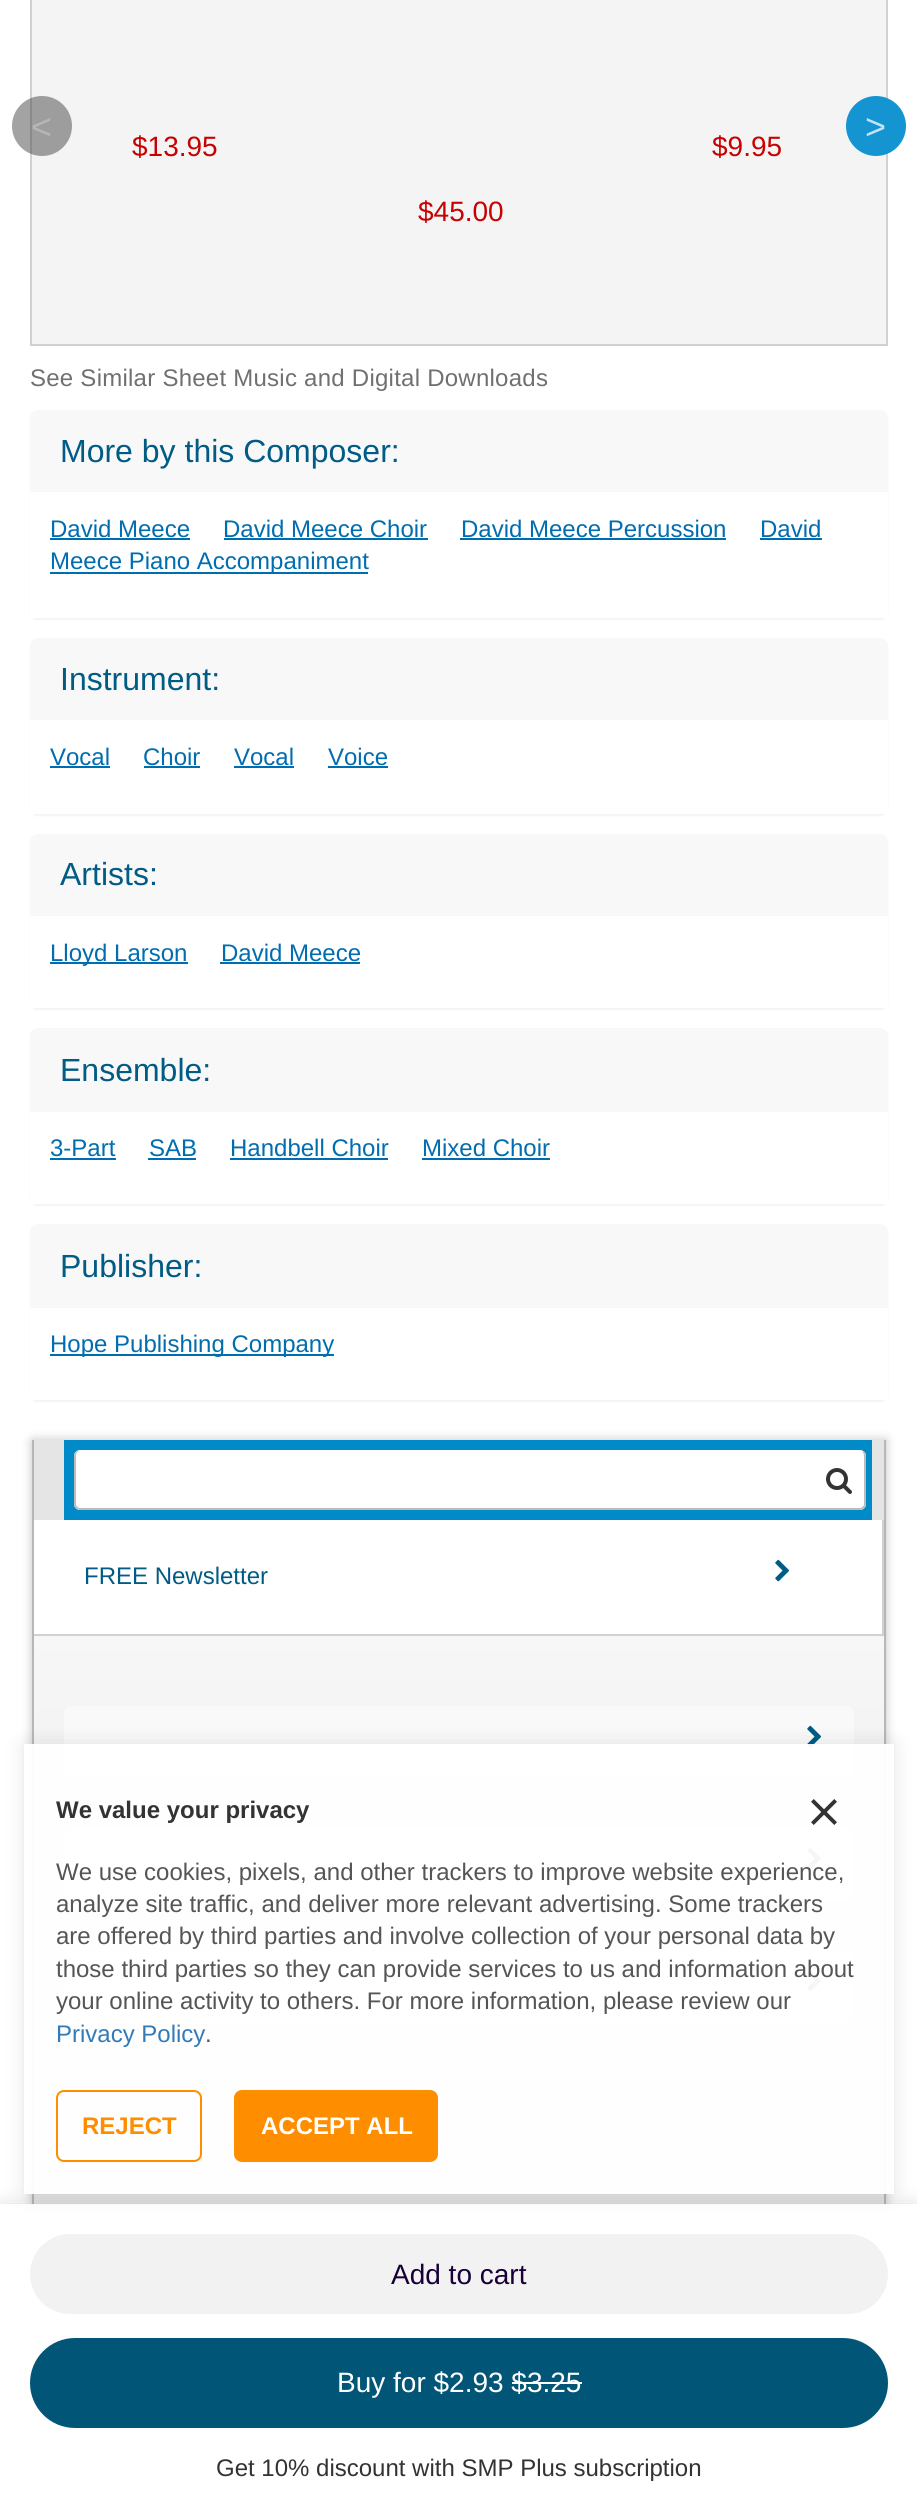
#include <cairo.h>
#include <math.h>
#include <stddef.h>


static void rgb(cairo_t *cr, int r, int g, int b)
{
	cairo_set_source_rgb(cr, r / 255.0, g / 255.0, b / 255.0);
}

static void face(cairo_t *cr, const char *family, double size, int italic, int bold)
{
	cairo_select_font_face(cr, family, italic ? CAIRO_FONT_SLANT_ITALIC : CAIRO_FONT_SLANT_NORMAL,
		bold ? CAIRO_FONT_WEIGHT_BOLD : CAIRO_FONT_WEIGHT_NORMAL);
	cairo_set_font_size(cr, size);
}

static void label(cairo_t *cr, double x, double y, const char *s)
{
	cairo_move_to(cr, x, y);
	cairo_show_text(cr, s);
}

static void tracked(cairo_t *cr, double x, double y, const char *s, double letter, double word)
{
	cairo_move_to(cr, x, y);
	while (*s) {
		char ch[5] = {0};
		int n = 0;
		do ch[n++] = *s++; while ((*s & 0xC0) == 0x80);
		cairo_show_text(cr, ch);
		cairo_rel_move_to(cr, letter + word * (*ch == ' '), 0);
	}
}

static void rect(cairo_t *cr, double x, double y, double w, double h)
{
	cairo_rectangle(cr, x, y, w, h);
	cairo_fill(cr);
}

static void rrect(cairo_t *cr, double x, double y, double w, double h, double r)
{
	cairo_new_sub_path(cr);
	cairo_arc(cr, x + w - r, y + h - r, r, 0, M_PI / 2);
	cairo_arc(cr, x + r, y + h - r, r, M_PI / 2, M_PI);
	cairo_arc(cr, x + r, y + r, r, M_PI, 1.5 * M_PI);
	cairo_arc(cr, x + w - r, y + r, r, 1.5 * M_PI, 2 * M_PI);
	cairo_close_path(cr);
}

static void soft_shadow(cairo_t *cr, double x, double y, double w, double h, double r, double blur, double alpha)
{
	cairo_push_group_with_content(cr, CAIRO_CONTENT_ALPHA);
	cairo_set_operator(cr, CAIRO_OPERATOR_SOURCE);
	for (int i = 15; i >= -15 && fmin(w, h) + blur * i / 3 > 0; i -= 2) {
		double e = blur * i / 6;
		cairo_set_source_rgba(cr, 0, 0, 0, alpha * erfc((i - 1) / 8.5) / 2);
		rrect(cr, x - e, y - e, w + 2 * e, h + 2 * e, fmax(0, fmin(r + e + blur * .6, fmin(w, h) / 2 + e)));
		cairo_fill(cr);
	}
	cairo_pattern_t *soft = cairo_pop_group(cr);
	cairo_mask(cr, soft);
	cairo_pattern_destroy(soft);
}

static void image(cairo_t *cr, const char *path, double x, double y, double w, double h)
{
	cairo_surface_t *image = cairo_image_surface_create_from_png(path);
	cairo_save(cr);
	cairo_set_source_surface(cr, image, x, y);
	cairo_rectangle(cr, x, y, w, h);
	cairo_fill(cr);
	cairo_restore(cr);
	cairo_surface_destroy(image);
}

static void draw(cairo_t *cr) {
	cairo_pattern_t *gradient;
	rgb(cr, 255, 255, 255);
	cairo_paint(cr);
	cairo_rectangle(cr, 31, -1, 856, 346);
	rgb(cr, 209, 209, 209);
	cairo_stroke(cr);
	rgb(cr, 244, 244, 244);
	rect(cr, 32, 0, 854, 344);
	cairo_set_source_rgba(cr, 0.2, 0.2, 0.2, 0.45);
	cairo_arc(cr, 42, 126, 30, 0, 2 * M_PI);
	cairo_fill(cr);
	face(cr, "Liberation Sans", 36, 0, 0);
	rgb(cr, 182, 182, 182);
	label(cr, 31, 139, "<");
	rgb(cr, 20, 148, 209);
	cairo_new_path(cr);
	cairo_arc(cr, 876, 126, 30, 0, 2 * M_PI);
	cairo_fill(cr);
	rgb(cr, 196, 228, 244);
	label(cr, 865, 139, ">");
	face(cr, "Liberation Sans", 28, 0, 0);
	rgb(cr, 198, 2, 2);
	label(cr, 132, 156, "$13.95");
	label(cr, 712, 156, "$9.95");
	label(cr, 418, 221, "$45.00");
	face(cr, "Liberation Sans", 24, 0, 0);
	rgb(cr, 112, 112, 112);
	tracked(cr, 30, 386, "See Similar Sheet Music and Digital Downloads", 0.25, 0);
	rgb(cr, 0, 0, 0);
	soft_shadow(cr, 30, 412, 858, 208, 8, 1, 0.05);
	rgb(cr, 248, 248, 248);
	rrect(cr, 30, 410, 858, 208, 8);
	cairo_fill(cr);
	face(cr, "Liberation Sans", 32, 0, 0);
	rgb(cr, 0, 91, 133);
	label(cr, 60, 462, "More by this Composer:");
	rgb(cr, 255, 255, 255);
	rect(cr, 30, 492, 858, 126);
	face(cr, "Liberation Sans", 24, 0, 0);
	rgb(cr, 0, 109, 177);
	label(cr, 50, 537, "David Meece");
	rect(cr, 50, 538, 140, 2);
	label(cr, 223, 537, "David Meece Choir");
	rect(cr, 224, 538, 204, 2);
	label(cr, 461, 537, "David Meece Percussion");
	rect(cr, 460, 538, 266, 2);
	label(cr, 760, 537, "David");
	rect(cr, 760, 538, 62, 2);
	rect(cr, 50, 572, 318, 2);
	label(cr, 50, 569, "Meece Piano Accompaniment");
	rgb(cr, 0, 0, 0);
	soft_shadow(cr, 30, 640, 858, 176, 8, 1, 0.05);
	rgb(cr, 248, 248, 248);
	rrect(cr, 30, 638, 858, 176, 8);
	cairo_fill(cr);
	face(cr, "Liberation Sans", 32, 0, 0);
	rgb(cr, 0, 91, 133);
	label(cr, 60, 690, "Instrument:");
	rgb(cr, 255, 255, 255);
	rect(cr, 30, 720, 858, 94);
	face(cr, "Liberation Sans", 24, 0, 0);
	rgb(cr, 0, 109, 177);
	label(cr, 50, 765, "Vocal");
	rect(cr, 50, 766, 60, 2);
	label(cr, 143, 765, "Choir");
	rect(cr, 144, 766, 56, 2);
	label(cr, 234, 765, "Vocal");
	rect(cr, 234, 766, 60, 2);
	label(cr, 328, 765, "Voice");
	rect(cr, 328, 766, 60, 2);
	rgb(cr, 0, 0, 0);
	soft_shadow(cr, 30, 836, 858, 174, 8, 1, 0.05);
	rgb(cr, 248, 248, 248);
	rrect(cr, 30, 834, 858, 174, 8);
	cairo_fill(cr);
	face(cr, "Liberation Sans", 32, 0, 0);
	rgb(cr, 0, 91, 133);
	label(cr, 60, 885, "Artists:");
	rgb(cr, 255, 255, 255);
	rect(cr, 30, 916, 858, 92);
	rgb(cr, 0, 109, 177);
	rect(cr, 50, 962, 138, 2);
	face(cr, "Liberation Sans", 24, 0, 0);
	label(cr, 50, 961, "Lloyd Larson");
	label(cr, 221, 961, "David Meece");
	rect(cr, 220, 962, 140, 2);
	rgb(cr, 0, 0, 0);
	soft_shadow(cr, 30, 1030, 858, 176, 8, 1, 0.05);
	rgb(cr, 248, 248, 248);
	rrect(cr, 30, 1028, 858, 176, 8);
	cairo_fill(cr);
	face(cr, "Liberation Sans", 32, 0, 0);
	rgb(cr, 0, 91, 133);
	label(cr, 60, 1081, "Ensemble:");
	rgb(cr, 255, 255, 255);
	rect(cr, 30, 1112, 858, 92);
	face(cr, "Liberation Sans", 24, 0, 0);
	rgb(cr, 0, 109, 177);
	label(cr, 50, 1156, "3-Part");
	rect(cr, 50, 1158, 66, 2);
	label(cr, 149, 1156, "SAB");
	rect(cr, 148, 1158, 48, 2);
	label(cr, 230, 1156, "Handbell Choir");
	rect(cr, 230, 1158, 158, 2);
	label(cr, 422, 1156, "Mixed Choir");
	rect(cr, 422, 1158, 128, 2);
	rgb(cr, 0, 0, 0);
	soft_shadow(cr, 30, 1226, 858, 176, 8, 1, 0.05);
	rgb(cr, 248, 248, 248);
	rrect(cr, 30, 1224, 858, 176, 8);
	cairo_fill(cr);
	face(cr, "Liberation Sans", 32, 0, 0);
	rgb(cr, 0, 91, 133);
	label(cr, 60, 1277, "Publisher:");
	rgb(cr, 255, 255, 255);
	rect(cr, 30, 1308, 858, 92);
	rgb(cr, 0, 109, 177);
	rect(cr, 50, 1354, 284, 2);
	face(cr, "Liberation Sans", 24, 0, 0);
	label(cr, 50, 1352, "Hope Publishing Company");
	rgb(cr, 195, 195, 195);
	soft_shadow(cr, 32, 1440, 854, 994, 0, 5, 1);
	rgb(cr, 229, 229, 229);
	rect(cr, 34, 1440, 850, 764);
	rgb(cr, 183, 183, 183);
	rect(cr, 884, 1440, 2, 764);
	rect(cr, 32, 1440, 2, 764);
	rgb(cr, 0, 0, 0);
	soft_shadow(cr, 0, 2208, 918, 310, 0, 10, 0.2);
	rgb(cr, 255, 255, 255);
	rect(cr, 0, 2204, 917, 310);
	rgb(cr, 242, 242, 242);
	rrect(cr, 30, 2234, 858, 80, 40);
	cairo_fill(cr);
	face(cr, "Liberation Sans", 28, 0, 0);
	rgb(cr, 24, 0, 54);
	label(cr, 391, 2284, "Add to cart");
	rgb(cr, 1, 86, 120);
	rrect(cr, 30, 2338, 858, 90, 45);
	cairo_fill(cr);
	rgb(cr, 255, 255, 255);
	label(cr, 337, 2392, "Buy for $2.93 $3.25");
	rect(cr, 512, 2382, 70, 2);
	face(cr, "Liberation Sans", 24, 0, 0);
	rgb(cr, 51, 51, 51);
	label(cr, 216, 2476, "Get 10% discount with SMP Plus subscription");
	gradient = cairo_pattern_create_linear(459, 1636, 459, 2136);
	cairo_pattern_add_color_stop_rgba(gradient, 0, 0.969, 0.969, 0.969, 1);
	cairo_pattern_add_color_stop_rgba(gradient, 1, 0.898, 0.898, 0.898, 1);
	cairo_set_source(cr, gradient);
	cairo_pattern_destroy(gradient);
	rect(cr, 34, 1636, 850, 431);
	rgb(cr, 249, 249, 249);
	rrect(cr, 64, 1706, 790, 72, 8);
	cairo_fill(cr);
	image(cr, "image3.png", 807, 1725, 14, 23);
	rrect(cr, 64, 1828, 790, 72, 8);
	cairo_fill(cr);
	image(cr, "image3.png", 807, 1847, 14, 23);
	rrect(cr, 64, 1950, 790, 72, 8);
	cairo_fill(cr);
	image(cr, "image3.png", 807, 1969, 14, 23);
	rgb(cr, 209, 209, 209);
	rect(cr, 54, 2156, 810, 2);
	cairo_save(cr);
	cairo_set_fill_rule(cr, CAIRO_FILL_RULE_EVEN_ODD);
	cairo_new_path(cr);
	cairo_move_to(cr, 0, 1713);
	cairo_line_to(cr, 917, 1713);
	cairo_line_to(cr, 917, 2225);
	cairo_line_to(cr, 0, 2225);
	cairo_close_path(cr);
	cairo_move_to(cr, 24, 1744);
	cairo_line_to(cr, 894, 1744);
	cairo_line_to(cr, 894, 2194);
	cairo_line_to(cr, 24, 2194);
	cairo_close_path(cr);
	cairo_clip(cr);
	rgb(cr, 0, 0, 0);
	soft_shadow(cr, 24, 1744, 870, 450, 0, 10, 0.1);
	cairo_restore(cr);
	cairo_set_source_rgba(cr, 1, 1, 1, 0.95);
	rect(cr, 24, 1744, 870, 450);
	face(cr, "Liberation Sans", 24, 0, 1);
	rgb(cr, 51, 51, 51);
	label(cr, 56, 1818, "We value your privacy");
	image(cr, "image0.png", 811, 1799, 26, 26);
	face(cr, "Liberation Sans", 24, 0, 0);
	rgb(cr, 85, 85, 85);
	label(cr, 56, 1880, "We use cookies, pixels, and other trackers to improve website experience,");
	label(cr, 56, 1912, "analyze site traffic, and deliver more relevant advertising. Some trackers");
	label(cr, 56, 1944, "are offered by third parties and involve collection of your personal data by");
	label(cr, 56, 1977, "those third parties so they can provide services to us and information about");
	label(cr, 56, 2009, "your online activity to others. For more information, please review our");
	rgb(cr, 51, 122, 183);
	label(cr, 56, 2042, "Privacy Policy");
	rgb(cr, 85, 85, 85);
	label(cr, 205, 2042, ".");
	rrect(cr, 57, 2091, 144, 70, 7);
	rgb(cr, 255, 141, 0);
	cairo_stroke(cr);
	face(cr, "Liberation Sans", 24, 0, 1);
	label(cr, 82, 2134, "REJECT");
	rrect(cr, 234, 2090, 204, 72, 8);
	cairo_fill(cr);
	rgb(cr, 255, 255, 255);
	label(cr, 261, 2134, "ACCEPT ALL");
	rgb(cr, 0, 139, 200);
	rect(cr, 64, 1440, 808, 80);
	rgb(cr, 255, 255, 255);
	rrect(cr, 74, 1450, 792, 60, 6);
	cairo_fill(cr);
	rgb(cr, 188, 188, 188);
	cairo_set_fill_rule(cr, CAIRO_FILL_RULE_EVEN_ODD);
	cairo_new_path(cr);
	cairo_move_to(cr, 80, 1450);
	cairo_line_to(cr, 860, 1450);
	cairo_curve_to(cr, 863, 1450, 866, 1453, 866, 1456);
	cairo_line_to(cr, 866, 1504);
	cairo_curve_to(cr, 866, 1507, 863, 1510, 860, 1510);
	cairo_line_to(cr, 80, 1510);
	cairo_curve_to(cr, 77, 1510, 74, 1507, 74, 1504);
	cairo_line_to(cr, 74, 1456);
	cairo_curve_to(cr, 74, 1453, 77, 1450, 80, 1450);
	cairo_close_path(cr);
	cairo_move_to(cr, 80, 1450);
	cairo_line_to(cr, 860, 1450);
	cairo_curve_to(cr, 862, 1450, 864, 1453, 864, 1456);
	cairo_line_to(cr, 864, 1504);
	cairo_curve_to(cr, 864, 1506, 862, 1508, 860, 1508);
	cairo_line_to(cr, 80, 1508);
	cairo_curve_to(cr, 78, 1508, 76, 1506, 76, 1504);
	cairo_line_to(cr, 76, 1456);
	cairo_curve_to(cr, 76, 1453, 78, 1450, 80, 1450);
	cairo_close_path(cr);
	cairo_fill(cr);
	image(cr, "image1.png", 826, 1468, 26, 26);
	rgb(cr, 255, 255, 255);
	rect(cr, 34, 1520, 848, 114);
	rgb(cr, 209, 209, 209);
	rect(cr, 882, 1520, 2, 114);
	face(cr, "Liberation Sans", 24, 0, 0);
	rgb(cr, 0, 91, 133);
	label(cr, 84, 1584, "FREE Newsletter");
	image(cr, "image2.png", 775, 1559, 14, 23);
	rgb(cr, 209, 209, 209);
	rect(cr, 34, 1634, 850, 2);
}

int main(void) {
	cairo_surface_t *surface = cairo_image_surface_create(CAIRO_FORMAT_RGB24, 917, 2514);
	cairo_t *cr = cairo_create(surface);
	cairo_font_options_t *options = cairo_font_options_create();
	cairo_font_options_set_hint_metrics(options, CAIRO_HINT_METRICS_OFF);
	cairo_font_options_set_hint_style(options, CAIRO_HINT_STYLE_NONE);
	cairo_set_font_options(cr, options);
	cairo_set_miter_limit(cr, 4);
	draw(cr);
	cairo_surface_write_to_png(surface, "render.png");
	cairo_font_options_destroy(options);
	cairo_destroy(cr);
	cairo_surface_destroy(surface);
	return 0;
}
